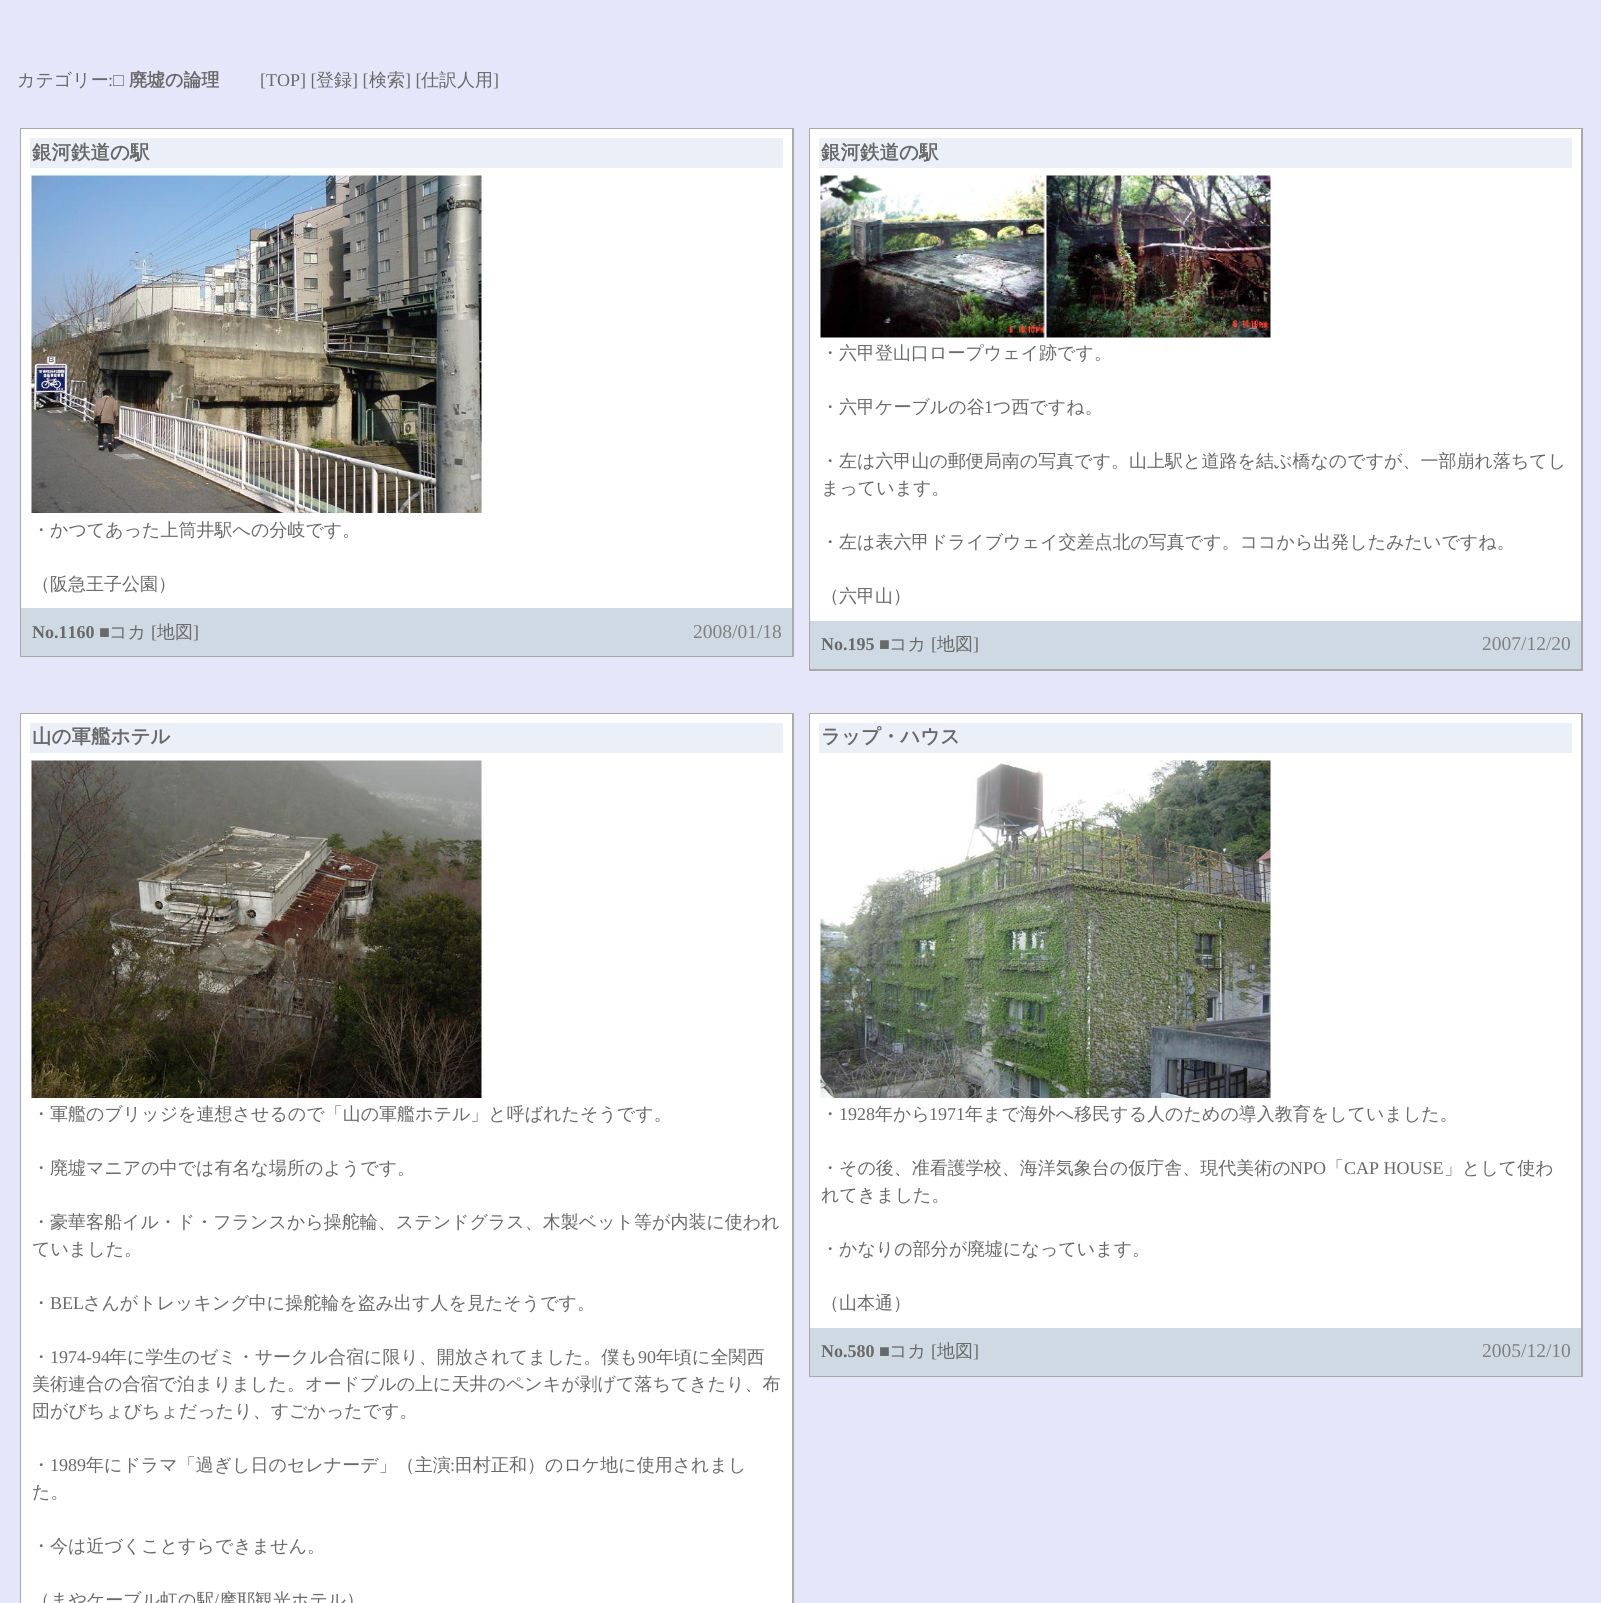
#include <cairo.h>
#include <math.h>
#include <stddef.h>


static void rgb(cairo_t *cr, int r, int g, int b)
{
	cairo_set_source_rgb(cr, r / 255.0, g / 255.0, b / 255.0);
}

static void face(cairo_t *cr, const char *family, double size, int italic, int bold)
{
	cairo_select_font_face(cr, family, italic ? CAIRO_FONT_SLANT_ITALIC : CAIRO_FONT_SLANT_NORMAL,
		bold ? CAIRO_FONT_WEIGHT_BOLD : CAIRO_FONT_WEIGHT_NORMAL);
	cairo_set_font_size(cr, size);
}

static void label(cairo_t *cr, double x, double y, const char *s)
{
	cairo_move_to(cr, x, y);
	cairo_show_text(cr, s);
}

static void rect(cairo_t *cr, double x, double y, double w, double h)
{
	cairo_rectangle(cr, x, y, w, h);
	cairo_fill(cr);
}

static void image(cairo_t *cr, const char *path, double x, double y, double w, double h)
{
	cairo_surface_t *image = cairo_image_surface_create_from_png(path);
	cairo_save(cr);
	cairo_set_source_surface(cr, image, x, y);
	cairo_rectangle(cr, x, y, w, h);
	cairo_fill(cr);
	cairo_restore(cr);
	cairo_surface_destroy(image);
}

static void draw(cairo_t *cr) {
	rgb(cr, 230, 230, 250);
	cairo_paint(cr);
	face(cr, "WenQuanYi Zen Hei Medium", 18, 0, 0);
	rgb(cr, 105, 105, 105);
	label(cr, 17, 86, "カテゴリー");
	face(cr, "Liberation Serif", 18, 0, 0);
	label(cr, 108, 86, ":");
	face(cr, "Liberation Serif", 18, 0, 1);
	label(cr, 113, 86, "□");
	face(cr, "WenQuanYi Zen Hei", 18, 0, 1);
	label(cr, 129, 86, "廃墟の論理");
	face(cr, "Liberation Serif", 18, 0, 0);
	label(cr, 260, 86, "[TOP] [");
	face(cr, "WenQuanYi Zen Hei Medium", 18, 0, 0);
	label(cr, 316, 86, "登録");
	face(cr, "Liberation Serif", 18, 0, 0);
	label(cr, 352, 86, "] [");
	face(cr, "WenQuanYi Zen Hei Medium", 18, 0, 0);
	label(cr, 369, 86, "検索");
	face(cr, "Liberation Serif", 18, 0, 0);
	label(cr, 405, 86, "] [");
	face(cr, "WenQuanYi Zen Hei Medium", 18, 0, 0);
	label(cr, 421, 86, "仕訳人用");
	face(cr, "Liberation Serif", 18, 0, 0);
	label(cr, 493, 86, "]");
	rgb(cr, 169, 169, 169);
	rect(cr, 20, 128, 774, 529);
	rgb(cr, 255, 255, 255);
	rect(cr, 21, 129, 771, 479);
	rgb(cr, 235, 240, 248);
	rect(cr, 30, 138, 753, 30);
	face(cr, "WenQuanYi Zen Hei", 19.5, 0, 1);
	rgb(cr, 105, 105, 105);
	label(cr, 32, 159, "銀河鉄道の駅");
	image(cr, "image0.png", 31, 175, 451, 338);
	face(cr, "WenQuanYi Zen Hei Medium", 18, 0, 0);
	label(cr, 32, 536, "・かつてあった上筒井駅への分岐です。");
	label(cr, 32, 590, "（阪急王子公園）");
	rgb(cr, 207, 217, 227);
	rect(cr, 21, 608, 771, 48);
	face(cr, "Liberation Serif", 18, 0, 1);
	rgb(cr, 105, 105, 105);
	label(cr, 32, 638, "No.1160");
	face(cr, "Liberation Serif", 18, 0, 0);
	label(cr, 99, 638, "■");
	face(cr, "WenQuanYi Zen Hei Medium", 18, 0, 0);
	label(cr, 109, 638, "コカ");
	face(cr, "Liberation Serif", 18, 0, 0);
	label(cr, 151, 638, "[");
	face(cr, "WenQuanYi Zen Hei Medium", 18, 0, 0);
	label(cr, 157, 638, "地図");
	face(cr, "Liberation Serif", 18, 0, 0);
	label(cr, 193, 638, "]");
	face(cr, "Liberation Serif", 19.5, 0, 0);
	rgb(cr, 128, 128, 128);
	label(cr, 693, 638, "2008/01/18");
	rgb(cr, 169, 169, 169);
	rect(cr, 809, 128, 774, 543);
	rgb(cr, 255, 255, 255);
	rect(cr, 810, 129, 771, 492);
	rgb(cr, 235, 240, 248);
	rect(cr, 819, 138, 753, 30);
	face(cr, "WenQuanYi Zen Hei", 19.5, 0, 1);
	rgb(cr, 105, 105, 105);
	label(cr, 821, 159, "銀河鉄道の駅");
	image(cr, "image1.png", 820, 175, 451, 163);
	face(cr, "WenQuanYi Zen Hei Medium", 18, 0, 0);
	label(cr, 821, 359, "・六甲登山口ロープウェイ跡です。");
	label(cr, 821, 413, "・六甲ケーブルの谷");
	face(cr, "Liberation Serif", 18, 0, 0);
	label(cr, 984, 413, "1");
	face(cr, "WenQuanYi Zen Hei Medium", 18, 0, 0);
	label(cr, 993, 413, "つ西ですね。");
	label(cr, 821, 467, "・左は六甲山の郵便局南の写真です。山上駅と道路を結ぶ橋なのですが、一部崩れ落ちてし");
	label(cr, 821, 494, "まっています。");
	label(cr, 821, 548, "・左は表六甲ドライブウェイ交差点北の写真です。ココから出発したみたいですね。");
	label(cr, 821, 602, "（六甲山）");
	rgb(cr, 207, 217, 227);
	rect(cr, 810, 621, 771, 48);
	face(cr, "Liberation Serif", 18, 0, 1);
	rgb(cr, 105, 105, 105);
	label(cr, 821, 650, "No.195");
	face(cr, "Liberation Serif", 18, 0, 0);
	label(cr, 879, 650, "■");
	face(cr, "WenQuanYi Zen Hei Medium", 18, 0, 0);
	label(cr, 889, 650, "コカ");
	face(cr, "Liberation Serif", 18, 0, 0);
	label(cr, 931, 650, "[");
	face(cr, "WenQuanYi Zen Hei Medium", 18, 0, 0);
	label(cr, 937, 650, "地図");
	face(cr, "Liberation Serif", 18, 0, 0);
	label(cr, 973, 650, "]");
	face(cr, "Liberation Serif", 19.5, 0, 0);
	rgb(cr, 128, 128, 128);
	label(cr, 1482, 650, "2007/12/20");
	rgb(cr, 169, 169, 169);
	rect(cr, 20, 713, 774, 890);
	rgb(cr, 255, 255, 255);
	rect(cr, 21, 714, 771, 889);
	rgb(cr, 235, 240, 248);
	rect(cr, 30, 723, 753, 30);
	face(cr, "WenQuanYi Zen Hei", 19.5, 0, 1);
	rgb(cr, 105, 105, 105);
	label(cr, 32, 743, "山の軍艦ホテル");
	image(cr, "image2.png", 31, 760, 451, 338);
	face(cr, "WenQuanYi Zen Hei Medium", 18, 0, 0);
	label(cr, 32, 1120, "・軍艦のブリッジを連想させるので「山の軍艦ホテル」と呼ばれたそうです。");
	label(cr, 32, 1174, "・廃墟マニアの中では有名な場所のようです。");
	label(cr, 32, 1228, "・豪華客船イル・ド・フランスから操舵輪、ステンドグラス、木製ベット等が内装に使われ");
	label(cr, 32, 1255, "ていました。");
	label(cr, 32, 1309, "・");
	face(cr, "Liberation Serif", 18, 0, 0);
	label(cr, 50, 1309, "BEL");
	face(cr, "WenQuanYi Zen Hei Medium", 18, 0, 0);
	label(cr, 83, 1309, "さんがトレッキング中に操舵輪を盗み出す人を見たそうです。");
	label(cr, 32, 1363, "・");
	face(cr, "Liberation Serif", 18, 0, 0);
	label(cr, 50, 1363, "1974-94");
	face(cr, "WenQuanYi Zen Hei Medium", 18, 0, 0);
	label(cr, 109, 1363, "年に学生のゼミ・サークル合宿に限り、開放されてました。僕も");
	face(cr, "Liberation Serif", 18, 0, 0);
	label(cr, 638, 1363, "90");
	face(cr, "WenQuanYi Zen Hei Medium", 18, 0, 0);
	label(cr, 656, 1363, "年頃に全関西");
	label(cr, 32, 1390, "美術連合の合宿で泊まりました。オードブルの上に天井のペンキが剥げて落ちてきたり、布");
	label(cr, 32, 1417, "団がびちょびちょだったり、すごかったです。");
	label(cr, 32, 1471, "・");
	face(cr, "Liberation Serif", 18, 0, 0);
	label(cr, 50, 1471, "1989");
	face(cr, "WenQuanYi Zen Hei Medium", 18, 0, 0);
	label(cr, 86, 1471, "年にドラマ「過ぎし日のセレナーデ」（主演");
	face(cr, "Liberation Serif", 18, 0, 0);
	label(cr, 450, 1471, ":");
	face(cr, "WenQuanYi Zen Hei Medium", 18, 0, 0);
	label(cr, 455, 1471, "田村正和）のロケ地に使用されまし");
	label(cr, 32, 1498, "た。");
	label(cr, 32, 1552, "・今は近づくことすらできません。");
	label(cr, 32, 1606, "（まやケーブル虹の駅");
	face(cr, "Liberation Serif", 18, 0, 0);
	label(cr, 214, 1606, "/");
	face(cr, "WenQuanYi Zen Hei Medium", 18, 0, 0);
	label(cr, 219, 1606, "摩耶観光ホテル）");
	rgb(cr, 169, 169, 169);
	rect(cr, 809, 713, 774, 664);
	rgb(cr, 255, 255, 255);
	rect(cr, 810, 714, 771, 614);
	rgb(cr, 235, 240, 248);
	rect(cr, 819, 723, 753, 30);
	face(cr, "WenQuanYi Zen Hei", 19.5, 0, 1);
	rgb(cr, 105, 105, 105);
	label(cr, 821, 743, "ラップ・ハウス");
	image(cr, "image3.png", 820, 760, 451, 338);
	face(cr, "WenQuanYi Zen Hei Medium", 18, 0, 0);
	label(cr, 821, 1120, "・");
	face(cr, "Liberation Serif", 18, 0, 0);
	label(cr, 839, 1120, "1928");
	face(cr, "WenQuanYi Zen Hei Medium", 18, 0, 0);
	label(cr, 875, 1120, "年から");
	face(cr, "Liberation Serif", 18, 0, 0);
	label(cr, 929, 1120, "1971");
	face(cr, "WenQuanYi Zen Hei Medium", 18, 0, 0);
	label(cr, 965, 1120, "年まで海外へ移民する人のための導入教育をしていました。");
	label(cr, 821, 1174, "・その後、准看護学校、海洋気象台の仮庁舎、現代美術の");
	face(cr, "Liberation Serif", 18, 0, 0);
	label(cr, 1290, 1174, "NPO");
	face(cr, "WenQuanYi Zen Hei Medium", 18, 0, 0);
	label(cr, 1326, 1174, "「");
	face(cr, "Liberation Serif", 18, 0, 0);
	label(cr, 1344, 1174, "CAP HOUSE");
	face(cr, "WenQuanYi Zen Hei Medium", 18, 0, 0);
	label(cr, 1444, 1174, "」として使わ");
	label(cr, 821, 1201, "れてきました。");
	label(cr, 821, 1255, "・かなりの部分が廃墟になっています。");
	label(cr, 821, 1309, "（山本通）");
	rgb(cr, 207, 217, 227);
	rect(cr, 810, 1328, 771, 48);
	face(cr, "Liberation Serif", 18, 0, 1);
	rgb(cr, 105, 105, 105);
	label(cr, 821, 1357, "No.580");
	face(cr, "Liberation Serif", 18, 0, 0);
	label(cr, 879, 1357, "■");
	face(cr, "WenQuanYi Zen Hei Medium", 18, 0, 0);
	label(cr, 889, 1357, "コカ");
	face(cr, "Liberation Serif", 18, 0, 0);
	label(cr, 931, 1357, "[");
	face(cr, "WenQuanYi Zen Hei Medium", 18, 0, 0);
	label(cr, 937, 1357, "地図");
	face(cr, "Liberation Serif", 18, 0, 0);
	label(cr, 973, 1357, "]");
	face(cr, "Liberation Serif", 19.5, 0, 0);
	rgb(cr, 128, 128, 128);
	label(cr, 1482, 1357, "2005/12/10");
}

int main(void) {
	cairo_surface_t *surface = cairo_image_surface_create(CAIRO_FORMAT_RGB24, 1601, 1603);
	cairo_t *cr = cairo_create(surface);
	cairo_font_options_t *options = cairo_font_options_create();
	cairo_font_options_set_hint_metrics(options, CAIRO_HINT_METRICS_OFF);
	cairo_font_options_set_hint_style(options, CAIRO_HINT_STYLE_NONE);
	cairo_set_font_options(cr, options);
	cairo_set_miter_limit(cr, 4);
	draw(cr);
	cairo_surface_write_to_png(surface, "render.png");
	cairo_font_options_destroy(options);
	cairo_destroy(cr);
	cairo_surface_destroy(surface);
	return 0;
}
